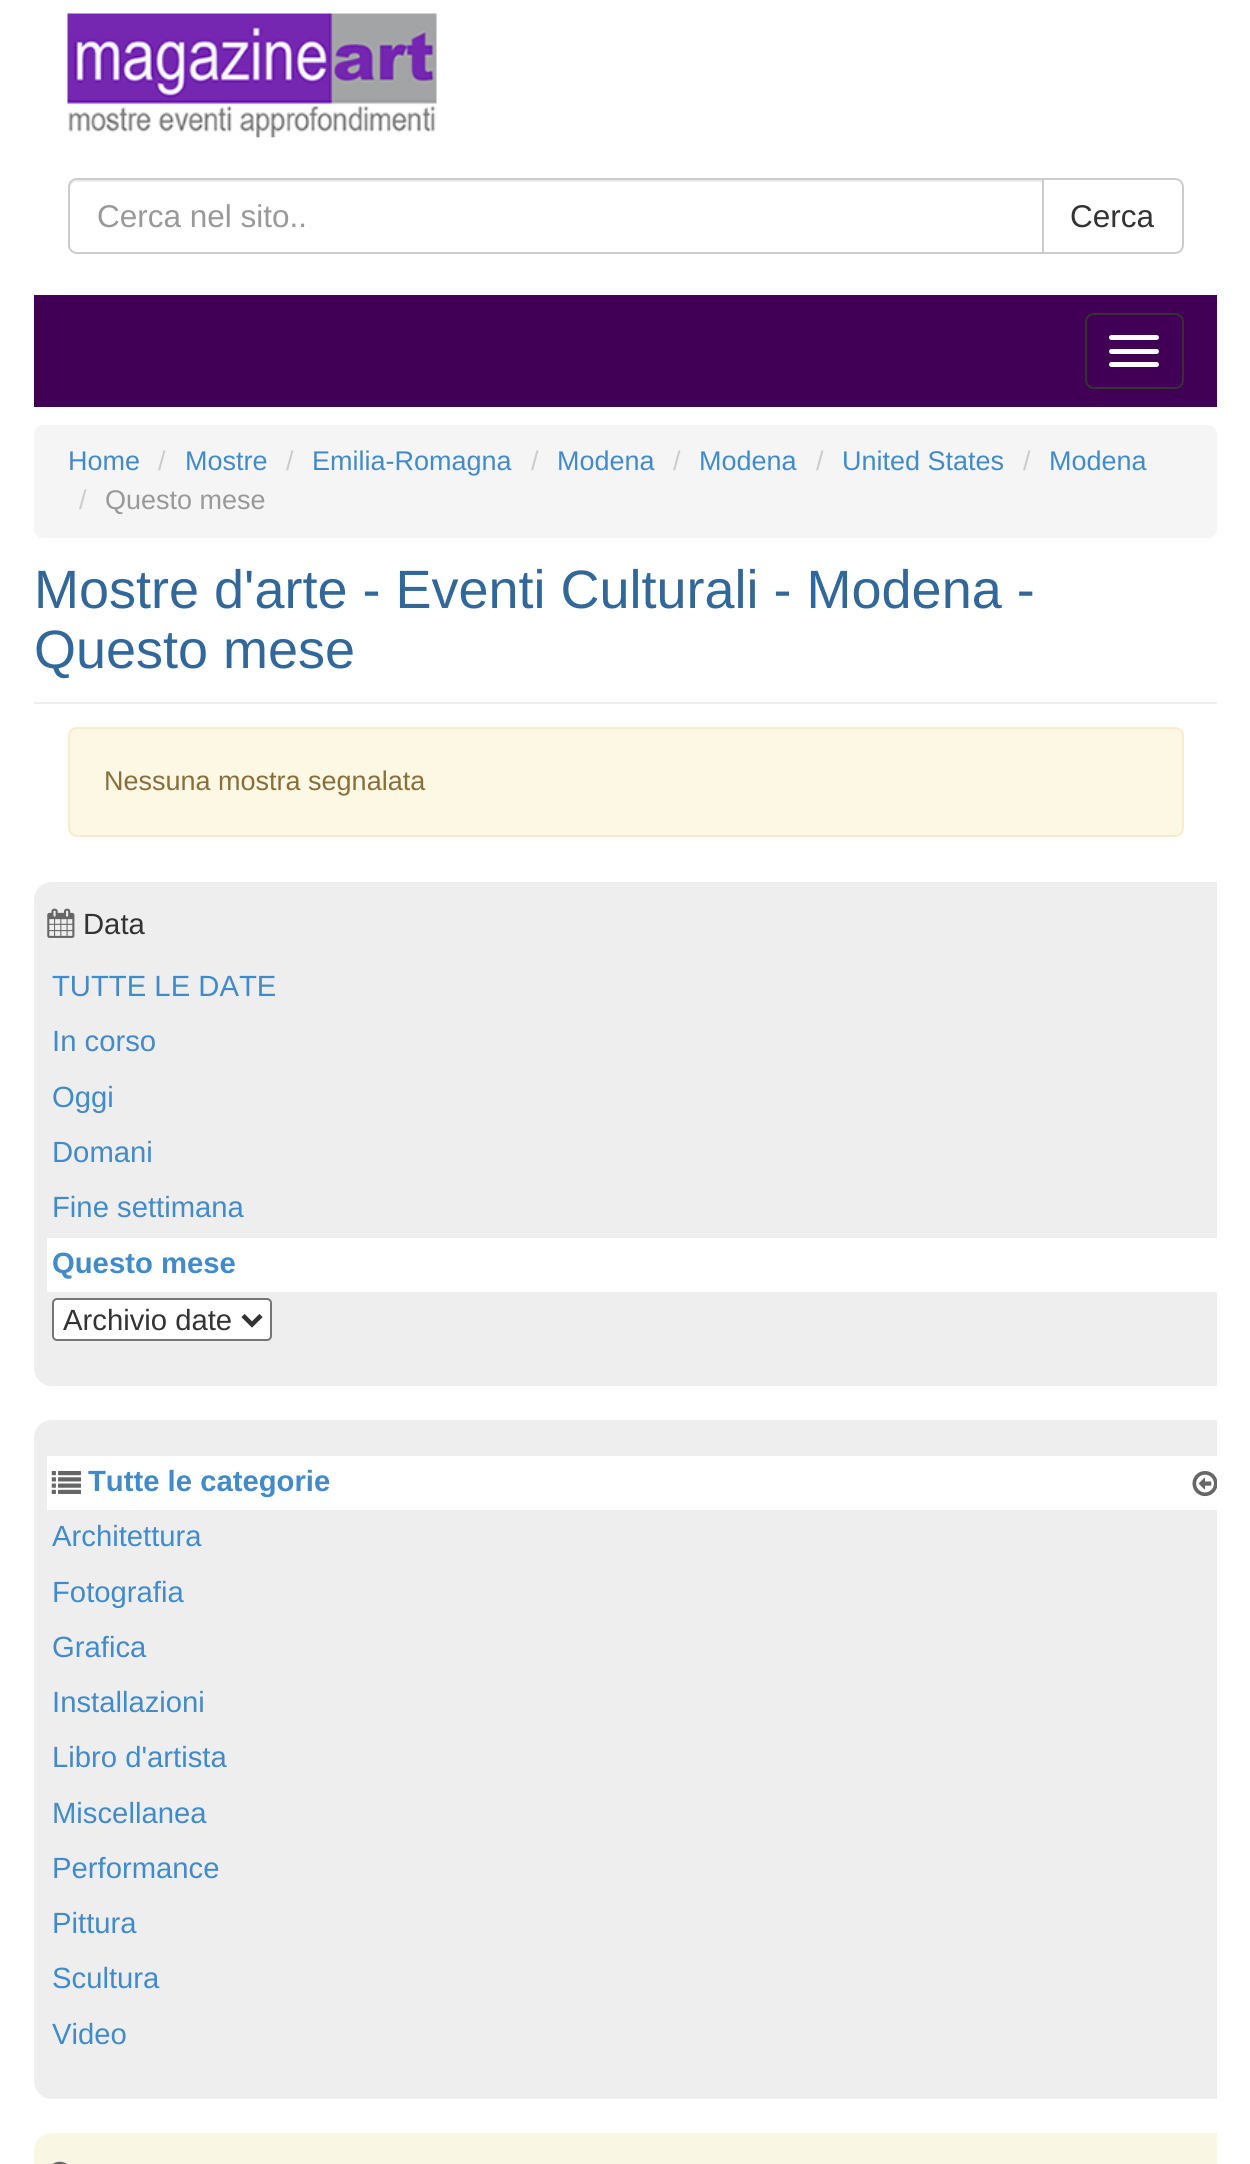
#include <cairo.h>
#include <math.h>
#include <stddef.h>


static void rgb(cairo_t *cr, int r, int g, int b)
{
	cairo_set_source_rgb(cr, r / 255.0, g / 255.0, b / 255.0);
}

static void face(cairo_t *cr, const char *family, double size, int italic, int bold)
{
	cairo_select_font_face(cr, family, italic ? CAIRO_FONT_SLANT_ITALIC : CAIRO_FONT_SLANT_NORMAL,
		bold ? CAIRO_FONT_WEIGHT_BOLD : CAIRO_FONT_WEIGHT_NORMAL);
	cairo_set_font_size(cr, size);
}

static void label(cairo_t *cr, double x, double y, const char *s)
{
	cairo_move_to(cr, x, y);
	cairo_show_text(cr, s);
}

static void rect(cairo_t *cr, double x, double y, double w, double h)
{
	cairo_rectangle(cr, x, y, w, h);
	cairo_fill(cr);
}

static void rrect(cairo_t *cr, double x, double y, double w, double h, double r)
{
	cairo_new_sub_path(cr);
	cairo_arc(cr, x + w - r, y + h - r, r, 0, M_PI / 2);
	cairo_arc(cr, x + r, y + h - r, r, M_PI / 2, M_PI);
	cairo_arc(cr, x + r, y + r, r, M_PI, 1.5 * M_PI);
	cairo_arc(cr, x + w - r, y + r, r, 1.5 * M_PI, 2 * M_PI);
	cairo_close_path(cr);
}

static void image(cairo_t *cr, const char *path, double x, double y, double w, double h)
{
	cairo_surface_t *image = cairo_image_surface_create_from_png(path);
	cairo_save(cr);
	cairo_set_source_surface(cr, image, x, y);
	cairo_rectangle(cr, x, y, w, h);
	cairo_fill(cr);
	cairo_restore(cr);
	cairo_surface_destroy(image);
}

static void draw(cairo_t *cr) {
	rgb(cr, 255, 255, 255);
	cairo_paint(cr);
	image(cr, "image0.png", 67, 13, 370, 125);
	rgb(cr, 236, 236, 236);
	cairo_new_path(cr);
	cairo_move_to(cr, 76, 182);
	cairo_line_to(cr, 1042, 182);
	cairo_line_to(cr, 1042, 180);
	cairo_line_to(cr, 77, 180);
	cairo_curve_to(cr, 72, 180, 70, 185, 70, 189);
	cairo_curve_to(cr, 70, 185, 73, 182, 76, 182);
	cairo_close_path(cr);
	cairo_fill(cr);
	cairo_new_path(cr);
	cairo_move_to(cr, 77, 179);
	cairo_line_to(cr, 1043, 179);
	cairo_line_to(cr, 1043, 253);
	cairo_line_to(cr, 77, 253);
	cairo_curve_to(cr, 72.5, 253, 69, 249.5, 69, 245);
	cairo_line_to(cr, 69, 187);
	cairo_curve_to(cr, 69, 182.5, 72.5, 179, 77, 179);
	cairo_close_path(cr);
	rgb(cr, 204, 204, 204);
	cairo_stroke(cr);
	face(cr, "Liberation Sans", 31.5, 0, 0);
	rgb(cr, 153, 153, 153);
	label(cr, 97, 227, "Cerca nel sito..");
	rgb(cr, 255, 255, 255);
	cairo_new_path(cr);
	cairo_move_to(cr, 1043, 179);
	cairo_line_to(cr, 1175, 179);
	cairo_curve_to(cr, 1179.5, 179, 1183, 182.5, 1183, 187);
	cairo_line_to(cr, 1183, 245);
	cairo_curve_to(cr, 1183, 249.5, 1179.5, 253, 1175, 253);
	cairo_line_to(cr, 1043, 253);
	cairo_close_path(cr);
	cairo_fill_preserve(cr);
	rgb(cr, 204, 204, 204);
	cairo_stroke(cr);
	rgb(cr, 51, 51, 51);
	label(cr, 1070, 227, "Cerca");
	rgb(cr, 65, 0, 85);
	rect(cr, 34, 295, 1183, 112);
	rrect(cr, 1086, 314, 97, 74, 8);
	rgb(cr, 51, 51, 51);
	cairo_stroke(cr);
	rgb(cr, 255, 255, 255);
	rrect(cr, 1109, 335, 50, 5, 2.5);
	cairo_fill(cr);
	rrect(cr, 1109, 349, 50, 5, 2.5);
	cairo_fill(cr);
	rrect(cr, 1109, 362, 50, 5, 2.5);
	cairo_fill(cr);
	rgb(cr, 245, 245, 245);
	rrect(cr, 34, 425, 1183, 113, 9);
	cairo_fill(cr);
	face(cr, "Liberation Sans", 27, 0, 0);
	rgb(cr, 66, 139, 202);
	label(cr, 68, 470, "Home");
	rgb(cr, 204, 204, 204);
	label(cr, 158, 470, "/");
	rgb(cr, 66, 139, 202);
	label(cr, 185, 470, "Mostre");
	rgb(cr, 204, 204, 204);
	label(cr, 286, 470, "/");
	rgb(cr, 66, 139, 202);
	label(cr, 312, 470, "Emilia-Romagna");
	rgb(cr, 204, 204, 204);
	label(cr, 531, 470, "/");
	rgb(cr, 66, 139, 202);
	label(cr, 557, 470, "Modena");
	rgb(cr, 204, 204, 204);
	label(cr, 673, 470, "/");
	rgb(cr, 66, 139, 202);
	label(cr, 699, 470, "Modena");
	rgb(cr, 204, 204, 204);
	label(cr, 816, 470, "/");
	rgb(cr, 66, 139, 202);
	label(cr, 842, 470, "United States");
	rgb(cr, 204, 204, 204);
	label(cr, 1023, 470, "/");
	rgb(cr, 66, 139, 202);
	label(cr, 1049, 470, "Modena");
	rgb(cr, 204, 204, 204);
	label(cr, 79, 509, "/");
	rgb(cr, 153, 153, 153);
	label(cr, 105, 509, "Questo mese");
	face(cr, "Liberation Sans", 54, 0, 0);
	rgb(cr, 50, 103, 154);
	label(cr, 34, 608, "Mostre d'arte - Eventi Culturali - Modena -");
	label(cr, 34, 668, "Questo mese");
	rgb(cr, 238, 238, 238);
	rect(cr, 34, 702, 1183, 2);
	rgb(cr, 252, 248, 227);
	rrect(cr, 69, 728, 1114, 108, 8);
	cairo_fill_preserve(cr);
	rgb(cr, 250, 235, 204);
	cairo_stroke(cr);
	face(cr, "Liberation Sans", 27, 0, 0);
	rgb(cr, 138, 109, 59);
	label(cr, 104, 790, "Nessuna mostra segnalata");
	rgb(cr, 238, 238, 238);
	cairo_new_path(cr);
	cairo_move_to(cr, 52, 882);
	cairo_line_to(cr, 1217, 882);
	cairo_line_to(cr, 1217, 1386);
	cairo_line_to(cr, 52, 1386);
	cairo_curve_to(cr, 42, 1386, 34, 1378, 34, 1368);
	cairo_line_to(cr, 34, 900);
	cairo_curve_to(cr, 34, 890, 42, 882, 52, 882);
	cairo_close_path(cr);
	cairo_fill(cr);
	image(cr, "image1.png", 47, 908, 28, 30);
	face(cr, "Liberation Sans", 29.25, 0, 0);
	rgb(cr, 51, 51, 51);
	label(cr, 83, 934, "Data");
	rgb(cr, 66, 139, 202);
	label(cr, 52, 996, "TUTTE LE DATE");
	label(cr, 52, 1051, "In corso");
	label(cr, 52, 1107, "Oggi");
	label(cr, 52, 1162, "Domani");
	label(cr, 52, 1217, "Fine settimana");
	rgb(cr, 255, 255, 255);
	rect(cr, 47, 1238, 1170, 54);
	face(cr, "Liberation Sans", 29.25, 0, 1);
	rgb(cr, 66, 139, 202);
	label(cr, 52, 1273, "Questo mese");
	rgb(cr, 255, 255, 255);
	rrect(cr, 53, 1299, 218, 41, 4);
	cairo_fill_preserve(cr);
	rgb(cr, 118, 118, 118);
	cairo_stroke(cr);
	cairo_new_path(cr);
	cairo_move_to(cr, 243, 1315.5);
	cairo_line_to(cr, 252, 1324.5);
	cairo_line_to(cr, 261, 1315.5);
	rgb(cr, 51, 51, 51);
	cairo_set_line_width(cr, 4.5);
	cairo_stroke(cr);
	face(cr, "Liberation Sans", 29.25, 0, 0);
	label(cr, 63, 1330, "Archivio date");
	rgb(cr, 238, 238, 238);
	cairo_new_path(cr);
	cairo_move_to(cr, 52, 1420);
	cairo_line_to(cr, 1217, 1420);
	cairo_line_to(cr, 1217, 2099);
	cairo_line_to(cr, 52, 2099);
	cairo_curve_to(cr, 42, 2099, 34, 2091, 34, 2081);
	cairo_line_to(cr, 34, 1438);
	cairo_curve_to(cr, 34, 1428, 42, 1420, 52, 1420);
	cairo_close_path(cr);
	cairo_fill(cr);
	rgb(cr, 255, 255, 255);
	rect(cr, 47, 1456, 1170, 54);
	image(cr, "image2.png", 51, 1471, 30, 23);
	face(cr, "Liberation Sans", 29.25, 0, 1);
	rgb(cr, 66, 139, 202);
	label(cr, 88, 1491, "Tutte le categorie");
	image(cr, "image3.png", 1192, 1471, 25, 26);
	face(cr, "Liberation Sans", 29.25, 0, 0);
	label(cr, 52, 1546, "Architettura");
	label(cr, 52, 1602, "Fotografia");
	label(cr, 52, 1657, "Grafica");
	label(cr, 52, 1712, "Installazioni");
	label(cr, 52, 1767, "Libro d'artista");
	label(cr, 52, 1823, "Miscellanea");
	label(cr, 52, 1878, "Performance");
	label(cr, 52, 1933, "Pittura");
	label(cr, 52, 1988, "Scultura");
	label(cr, 52, 2044, "Video");
	rgb(cr, 249, 246, 228);
	cairo_new_path(cr);
	cairo_move_to(cr, 52, 2133);
	cairo_line_to(cr, 1217, 2133);
	cairo_line_to(cr, 1217, 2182);
	cairo_line_to(cr, 52, 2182);
	cairo_curve_to(cr, 42, 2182, 34, 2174, 34, 2164);
	cairo_line_to(cr, 34, 2151);
	cairo_curve_to(cr, 34, 2141, 42, 2133, 52, 2133);
	cairo_close_path(cr);
	cairo_fill(cr);
	image(cr, "image4.png", 52, 2161, 15, 3);
}

int main(void) {
	cairo_surface_t *surface = cairo_image_surface_create(CAIRO_FORMAT_RGB24, 1250, 2164);
	cairo_t *cr = cairo_create(surface);
	cairo_font_options_t *options = cairo_font_options_create();
	cairo_font_options_set_hint_metrics(options, CAIRO_HINT_METRICS_OFF);
	cairo_font_options_set_hint_style(options, CAIRO_HINT_STYLE_NONE);
	cairo_set_font_options(cr, options);
	cairo_set_miter_limit(cr, 4);
	draw(cr);
	cairo_surface_write_to_png(surface, "render.png");
	cairo_font_options_destroy(options);
	cairo_destroy(cr);
	cairo_surface_destroy(surface);
	return 0;
}
